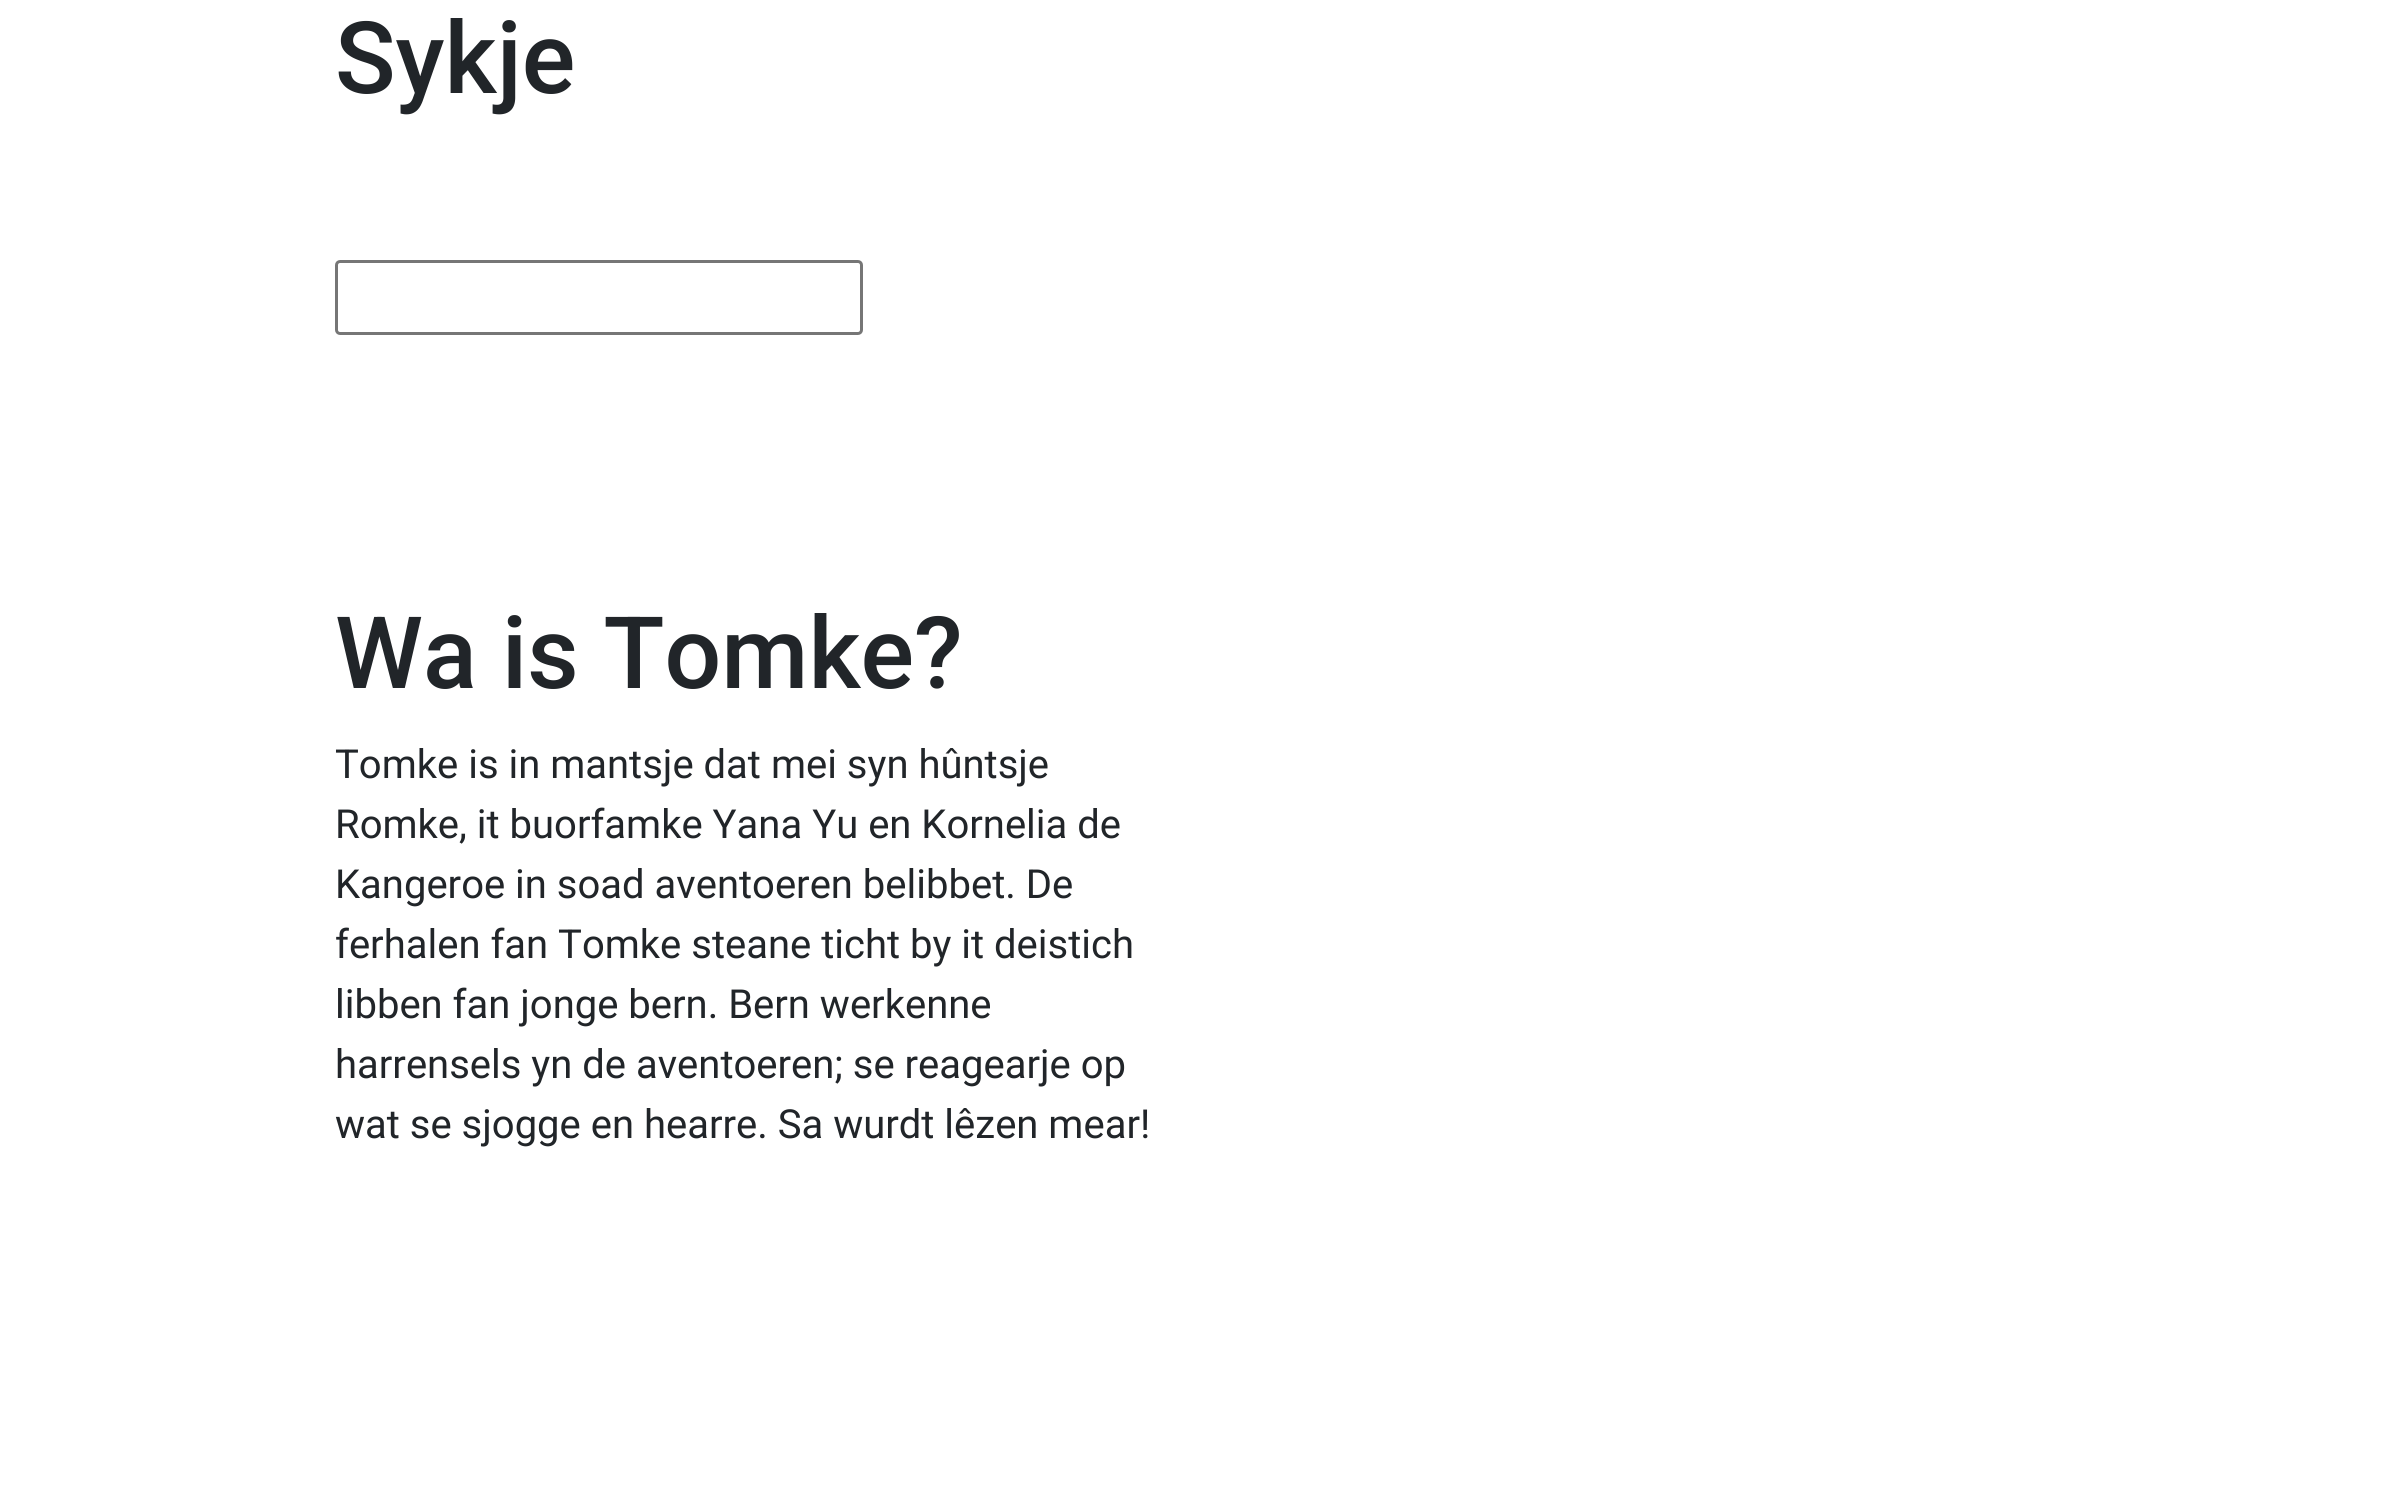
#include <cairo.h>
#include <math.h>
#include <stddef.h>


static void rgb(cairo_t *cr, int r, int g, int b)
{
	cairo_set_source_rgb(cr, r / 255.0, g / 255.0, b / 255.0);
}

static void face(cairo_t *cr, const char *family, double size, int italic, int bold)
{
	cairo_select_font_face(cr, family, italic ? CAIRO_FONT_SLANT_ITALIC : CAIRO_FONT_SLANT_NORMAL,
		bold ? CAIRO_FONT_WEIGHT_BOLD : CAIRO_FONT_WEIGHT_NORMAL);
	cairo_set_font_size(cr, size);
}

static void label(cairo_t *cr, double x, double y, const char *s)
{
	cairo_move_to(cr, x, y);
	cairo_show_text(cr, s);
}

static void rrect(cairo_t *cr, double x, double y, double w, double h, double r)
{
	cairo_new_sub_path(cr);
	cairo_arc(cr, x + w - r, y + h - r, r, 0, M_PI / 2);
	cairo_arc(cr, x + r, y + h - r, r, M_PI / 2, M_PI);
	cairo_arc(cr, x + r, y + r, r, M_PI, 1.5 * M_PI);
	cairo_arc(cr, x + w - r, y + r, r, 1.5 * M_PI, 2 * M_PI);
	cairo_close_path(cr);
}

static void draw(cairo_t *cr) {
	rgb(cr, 255, 255, 255);
	cairo_paint(cr);
	face(cr, "Roboto Medium", 100, 0, 0);
	rgb(cr, 33, 37, 41);
	label(cr, 335, 93, "Sykje");
	rrect(cr, 336.5, 261.5, 525, 72, 3.5);
	rgb(cr, 118, 118, 118);
	cairo_set_line_width(cr, 3);
	cairo_stroke(cr);
	rgb(cr, 33, 37, 41);
	label(cr, 335, 688, "Wa is Tomke?");
	face(cr, "Roboto", 40, 0, 0);
	label(cr, 335, 778, "Tomke is in mantsje dat mei syn hûntsje");
	label(cr, 335, 838, "Romke, it buorfamke Yana Yu en Kornelia de");
	label(cr, 335, 898, "Kangeroe in soad aventoeren belibbet. De");
	label(cr, 335, 958, "ferhalen fan Tomke steane ticht by it deistich");
	label(cr, 335, 1018, "libben fan jonge bern. Bern werkenne");
	label(cr, 335, 1078, "harrensels yn de aventoeren; se reagearje op");
	label(cr, 335, 1138, "wat se sjogge en hearre. Sa wurdt lêzen mear!");
}

int main(void) {
	cairo_surface_t *surface = cairo_image_surface_create(CAIRO_FORMAT_RGB24, 2393, 1512);
	cairo_t *cr = cairo_create(surface);
	cairo_font_options_t *options = cairo_font_options_create();
	cairo_font_options_set_hint_metrics(options, CAIRO_HINT_METRICS_OFF);
	cairo_font_options_set_hint_style(options, CAIRO_HINT_STYLE_NONE);
	cairo_set_font_options(cr, options);
	cairo_set_miter_limit(cr, 4);
	draw(cr);
	cairo_surface_write_to_png(surface, "render.png");
	cairo_font_options_destroy(options);
	cairo_destroy(cr);
	cairo_surface_destroy(surface);
	return 0;
}
